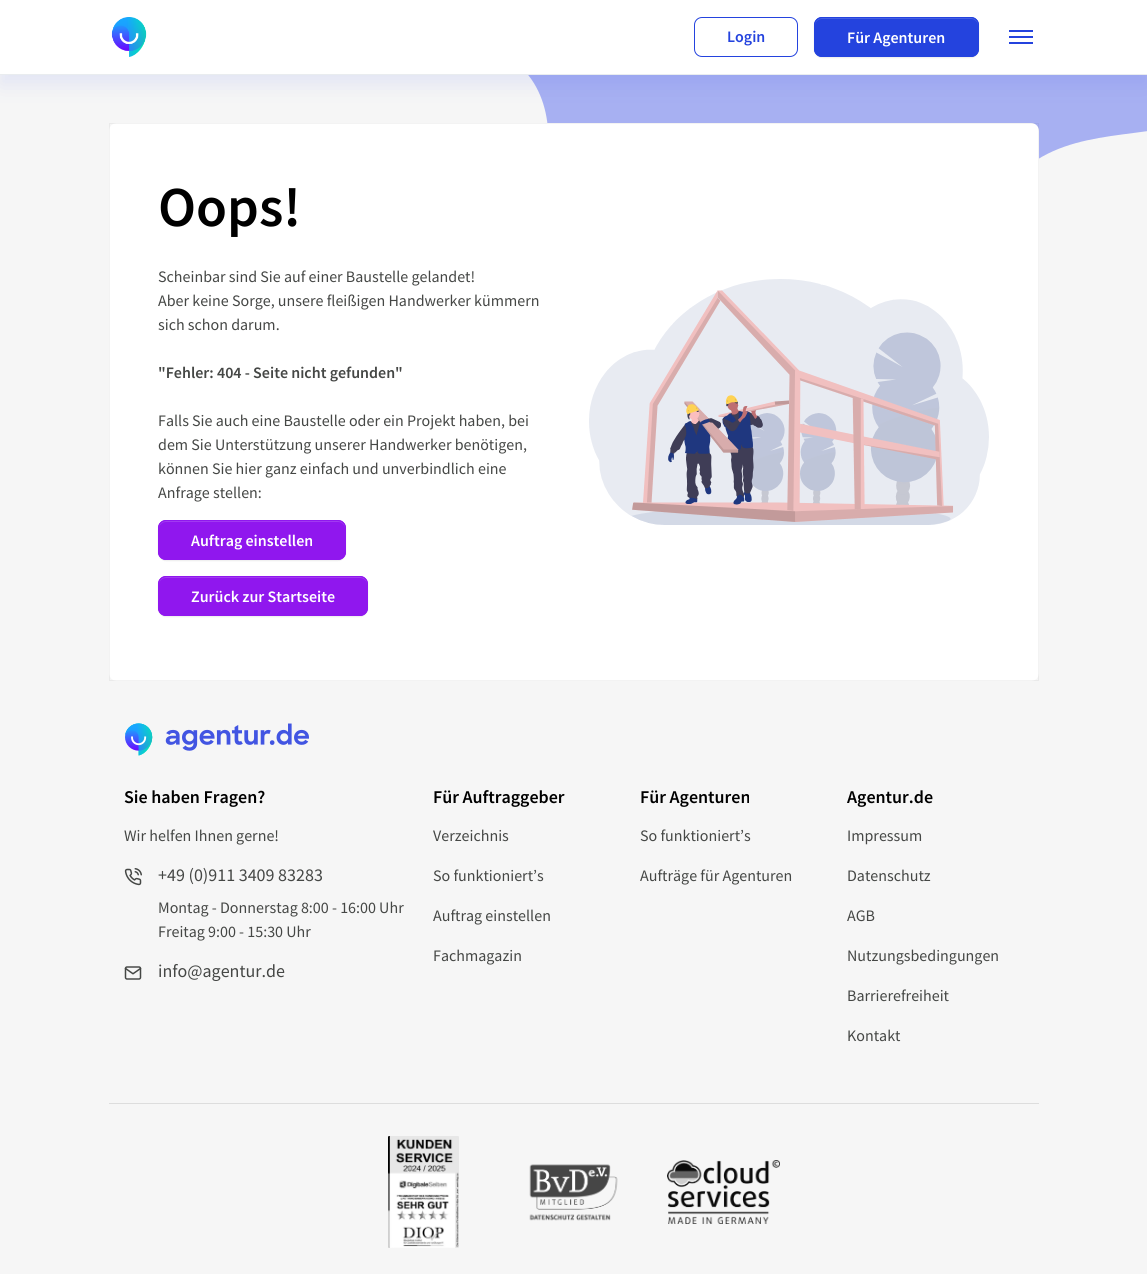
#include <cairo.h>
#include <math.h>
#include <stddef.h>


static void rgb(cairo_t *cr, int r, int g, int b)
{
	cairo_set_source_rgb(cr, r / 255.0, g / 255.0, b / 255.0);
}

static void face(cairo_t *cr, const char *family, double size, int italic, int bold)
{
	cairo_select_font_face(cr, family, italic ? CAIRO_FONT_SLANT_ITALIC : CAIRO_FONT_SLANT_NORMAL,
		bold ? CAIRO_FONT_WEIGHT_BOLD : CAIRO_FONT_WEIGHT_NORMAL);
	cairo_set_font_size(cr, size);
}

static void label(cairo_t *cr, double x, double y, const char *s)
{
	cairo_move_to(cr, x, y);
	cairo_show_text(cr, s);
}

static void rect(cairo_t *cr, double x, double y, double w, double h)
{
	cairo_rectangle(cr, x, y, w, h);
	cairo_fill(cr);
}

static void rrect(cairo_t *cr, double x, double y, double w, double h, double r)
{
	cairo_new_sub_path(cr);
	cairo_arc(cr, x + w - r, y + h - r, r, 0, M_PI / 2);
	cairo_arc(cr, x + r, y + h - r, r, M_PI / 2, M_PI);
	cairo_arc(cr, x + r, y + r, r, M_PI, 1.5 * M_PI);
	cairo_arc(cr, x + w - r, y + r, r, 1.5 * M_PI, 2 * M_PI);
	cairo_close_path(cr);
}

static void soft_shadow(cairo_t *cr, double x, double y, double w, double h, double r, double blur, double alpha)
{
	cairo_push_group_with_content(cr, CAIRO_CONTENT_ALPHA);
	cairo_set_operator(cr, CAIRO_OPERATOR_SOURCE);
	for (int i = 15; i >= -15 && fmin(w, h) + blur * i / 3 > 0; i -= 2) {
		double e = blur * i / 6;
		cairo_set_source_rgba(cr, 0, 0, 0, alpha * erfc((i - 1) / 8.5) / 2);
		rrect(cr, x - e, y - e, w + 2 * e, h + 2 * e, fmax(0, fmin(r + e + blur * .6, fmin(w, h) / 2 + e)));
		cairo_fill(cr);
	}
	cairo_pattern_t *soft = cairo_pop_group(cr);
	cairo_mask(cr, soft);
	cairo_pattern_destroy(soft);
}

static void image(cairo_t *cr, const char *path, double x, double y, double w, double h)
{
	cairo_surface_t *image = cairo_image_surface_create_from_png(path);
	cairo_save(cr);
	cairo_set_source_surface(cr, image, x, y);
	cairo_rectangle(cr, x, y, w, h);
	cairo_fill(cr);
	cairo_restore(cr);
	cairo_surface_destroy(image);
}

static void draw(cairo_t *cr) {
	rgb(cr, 246, 246, 246);
	cairo_paint(cr);
	image(cr, "image1.png", 528, 75, 619, 84);
	rgb(cr, 36, 67, 222);
	soft_shadow(cr, 0, 10, 1147, 75, 0, 10, 0.1);
	rgb(cr, 255, 255, 255);
	rect(cr, 0, 0, 1147, 74);
	rgb(cr, 233, 236, 239);
	rect(cr, 0, 74, 1147, 1);
	image(cr, "image0.png", 111, 17, 36, 40);
	rrect(cr, 694.5, 17.5, 103, 39, 7.5);
	rgb(cr, 36, 67, 222);
	cairo_set_line_width(cr, 1);
	cairo_stroke(cr);
	face(cr, "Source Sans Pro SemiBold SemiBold", 16, 0, 0);
	label(cr, 727, 42, "Login");
	rgb(cr, 0, 0, 0);
	soft_shadow(cr, 814, 18, 165, 40, 8, 0.5, 0.07);
	rgb(cr, 36, 67, 222);
	rrect(cr, 814, 17, 165, 40, 8);
	cairo_fill(cr);
	rgb(cr, 69, 95, 227);
	cairo_new_path(cr);
	cairo_move_to(cr, 822, 19);
	cairo_line_to(cr, 971, 19);
	cairo_curve_to(cr, 975, 19, 978, 22, 978, 26);
	cairo_line_to(cr, 978, 25);
	cairo_curve_to(cr, 978, 21, 975, 18, 971, 18);
	cairo_line_to(cr, 822, 18);
	cairo_curve_to(cr, 818, 18, 815, 21, 815, 25);
	cairo_line_to(cr, 815, 26);
	cairo_curve_to(cr, 815, 22, 818, 19, 822, 19);
	cairo_close_path(cr);
	cairo_fill(cr);
	rrect(cr, 814.5, 17.5, 164, 39, 7.5);
	rgb(cr, 36, 67, 222);
	cairo_stroke(cr);
	rgb(cr, 255, 255, 255);
	label(cr, 847, 43, "Für Agenturen");
	rgb(cr, 36, 67, 222);
	rect(cr, 1009, 36, 24, 2);
	rect(cr, 1009, 30, 24, 2);
	rect(cr, 1009, 42, 24, 2);
	rgb(cr, 255, 255, 255);
	rrect(cr, 109, 123, 930, 558, 8);
	cairo_fill(cr);
	cairo_rectangle(cr, 109.5, 123.5, 929, 557);
	cairo_set_source_rgba(cr, 0, 0, 0, 0.05);
	cairo_stroke(cr);
	face(cr, "Source Sans Pro SemiBold SemiBold", 56.5, 0, 0);
	rgb(cr, 0, 0, 0);
	label(cr, 158, 226, "Oops!");
	face(cr, "Source Sans Pro", 16, 0, 0);
	rgb(cr, 69, 71, 69);
	label(cr, 158, 282, "Scheinbar sind Sie auf einer Baustelle gelandet!");
	label(cr, 158, 306, "Aber keine Sorge, unsere fleißigen Handwerker kümmern");
	label(cr, 158, 330, "sich schon darum.");
	face(cr, "Source Sans Pro SemiBold SemiBold", 16, 0, 0);
	label(cr, 158, 378, "\"Fehler: 404 - Seite nicht gefunden\"");
	face(cr, "Source Sans Pro", 16, 0, 0);
	label(cr, 158, 426, "Falls Sie auch eine Baustelle oder ein Projekt haben, bei");
	label(cr, 158, 450, "dem Sie Unterstützung unserer Handwerker benötigen,");
	label(cr, 158, 474, "können Sie hier ganz einfach und unverbindlich eine");
	label(cr, 158, 498, "Anfrage stellen:");
	rgb(cr, 0, 0, 0);
	soft_shadow(cr, 158, 521, 188, 40, 8, 0.5, 0.07);
	rgb(cr, 144, 23, 238);
	rrect(cr, 158, 520, 188, 40, 8);
	cairo_fill(cr);
	rgb(cr, 161, 58, 241);
	cairo_new_path(cr);
	cairo_move_to(cr, 166, 522);
	cairo_line_to(cr, 338, 522);
	cairo_curve_to(cr, 342, 522, 345, 525, 345, 529);
	cairo_line_to(cr, 345, 528);
	cairo_curve_to(cr, 345, 524, 342, 521, 338, 521);
	cairo_line_to(cr, 166, 521);
	cairo_curve_to(cr, 162, 521, 159, 524, 159, 528);
	cairo_line_to(cr, 159, 529);
	cairo_curve_to(cr, 159, 525, 162, 522, 166, 522);
	cairo_close_path(cr);
	cairo_fill(cr);
	rrect(cr, 158.5, 520.5, 187, 39, 7.5);
	rgb(cr, 144, 23, 238);
	cairo_stroke(cr);
	face(cr, "Source Sans Pro SemiBold SemiBold", 16, 0, 0);
	rgb(cr, 255, 255, 255);
	label(cr, 191, 546, "Auftrag einstellen");
	rgb(cr, 0, 0, 0);
	soft_shadow(cr, 158, 577, 210, 40, 8, 0.5, 0.07);
	rgb(cr, 144, 23, 238);
	rrect(cr, 158, 576, 210, 40, 8);
	cairo_fill(cr);
	rgb(cr, 161, 58, 241);
	cairo_new_path(cr);
	cairo_move_to(cr, 166, 578);
	cairo_line_to(cr, 360, 578);
	cairo_curve_to(cr, 364, 578, 367, 581, 367, 585);
	cairo_line_to(cr, 367, 584);
	cairo_curve_to(cr, 367, 580, 364, 577, 360, 577);
	cairo_line_to(cr, 166, 577);
	cairo_curve_to(cr, 162, 577, 159, 580, 159, 584);
	cairo_line_to(cr, 159, 585);
	cairo_curve_to(cr, 159, 581, 162, 578, 166, 578);
	cairo_close_path(cr);
	cairo_fill(cr);
	rrect(cr, 158.5, 576.5, 209, 39, 7.5);
	rgb(cr, 144, 23, 238);
	cairo_stroke(cr);
	rgb(cr, 255, 255, 255);
	label(cr, 191, 602, "Zurück zur Startseite");
	image(cr, "image2.png", 589, 279, 400, 246);
	image(cr, "image3.png", 125, 723, 184, 33);
	rgb(cr, 221, 221, 221);
	rect(cr, 109, 1103, 930, 1);
	face(cr, "Source Sans Pro SemiBold SemiBold", 18, 0, 0);
	rgb(cr, 0, 0, 0);
	label(cr, 124, 803, "Sie haben Fragen?");
	face(cr, "Source Sans Pro", 16, 0, 0);
	rgb(cr, 69, 71, 69);
	label(cr, 124, 841, "Wir helfen Ihnen gerne!");
	image(cr, "image4.png", 124, 868, 18, 18);
	face(cr, "Source Sans Pro", 18, 0, 0);
	label(cr, 158, 881, "+49 (0)911 3409 83283");
	face(cr, "Source Sans Pro", 16, 0, 0);
	label(cr, 158, 913, "Montag - Donnerstag 8:00 - 16:00 Uhr");
	label(cr, 158, 937, "Freitag 9:00 - 15:30 Uhr");
	image(cr, "image5.png", 124, 966, 18, 14);
	face(cr, "Source Sans Pro", 18, 0, 0);
	label(cr, 158, 977, "info@agentur.de");
	face(cr, "Source Sans Pro SemiBold SemiBold", 18, 0, 0);
	rgb(cr, 0, 0, 0);
	label(cr, 433, 803, "Für Auftraggeber");
	face(cr, "Source Sans Pro", 16, 0, 0);
	rgb(cr, 69, 71, 69);
	label(cr, 433, 841, "Verzeichnis");
	label(cr, 433, 881, "So funktioniert’s");
	label(cr, 433, 921, "Auftrag einstellen");
	label(cr, 433, 961, "Fachmagazin");
	face(cr, "Source Sans Pro SemiBold SemiBold", 18, 0, 0);
	rgb(cr, 0, 0, 0);
	label(cr, 640, 803, "Für Agenturen");
	face(cr, "Source Sans Pro", 16, 0, 0);
	rgb(cr, 69, 71, 69);
	label(cr, 640, 841, "So funktioniert’s");
	label(cr, 640, 881, "Aufträge für Agenturen");
	face(cr, "Source Sans Pro SemiBold SemiBold", 18, 0, 0);
	rgb(cr, 0, 0, 0);
	label(cr, 847, 803, "Agentur.de");
	face(cr, "Source Sans Pro", 16, 0, 0);
	rgb(cr, 69, 71, 69);
	label(cr, 847, 841, "Impressum");
	label(cr, 847, 881, "Datenschutz");
	label(cr, 847, 921, "AGB");
	label(cr, 847, 961, "Nutzungsbedingungen");
	label(cr, 847, 1001, "Barrierefreiheit");
	label(cr, 847, 1041, "Kontakt");
	image(cr, "image6.png", 388, 1136, 71, 112);
	image(cr, "image7.png", 529, 1164, 89, 57);
	image(cr, "image8.png", 667, 1160, 113, 64);
}

int main(void) {
	cairo_surface_t *surface = cairo_image_surface_create(CAIRO_FORMAT_RGB24, 1147, 1274);
	cairo_t *cr = cairo_create(surface);
	cairo_font_options_t *options = cairo_font_options_create();
	cairo_font_options_set_hint_metrics(options, CAIRO_HINT_METRICS_OFF);
	cairo_font_options_set_hint_style(options, CAIRO_HINT_STYLE_NONE);
	cairo_set_font_options(cr, options);
	cairo_set_miter_limit(cr, 4);
	draw(cr);
	cairo_surface_write_to_png(surface, "render.png");
	cairo_font_options_destroy(options);
	cairo_destroy(cr);
	cairo_surface_destroy(surface);
	return 0;
}
